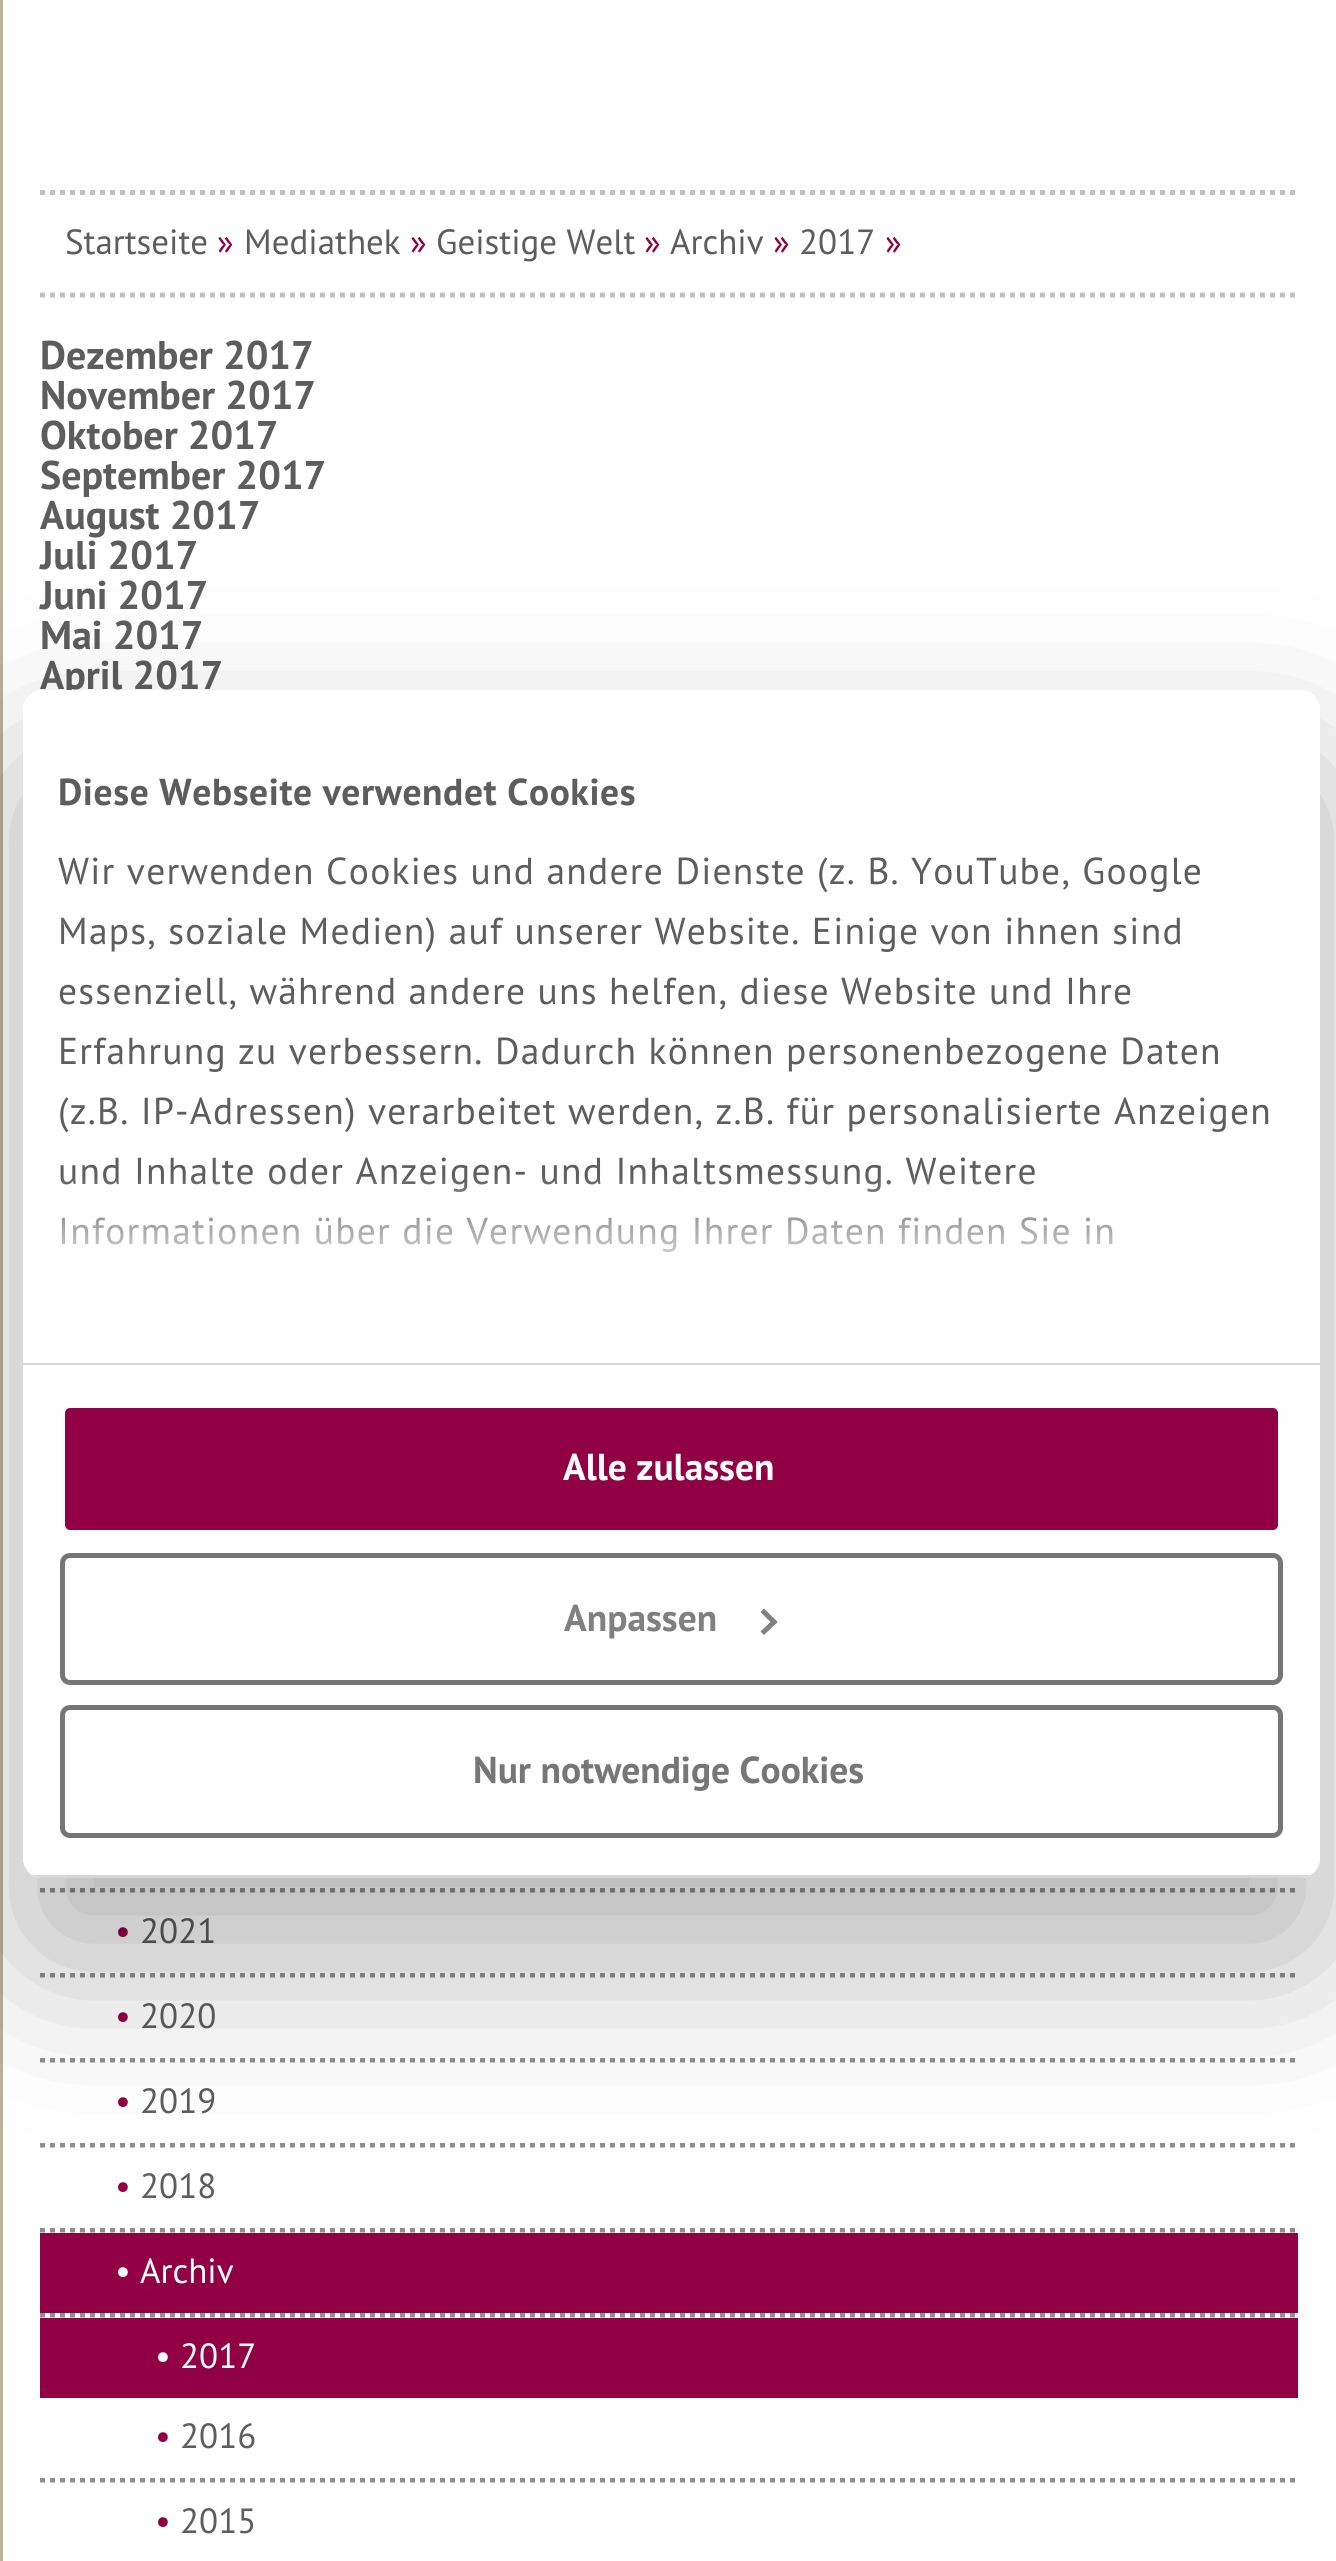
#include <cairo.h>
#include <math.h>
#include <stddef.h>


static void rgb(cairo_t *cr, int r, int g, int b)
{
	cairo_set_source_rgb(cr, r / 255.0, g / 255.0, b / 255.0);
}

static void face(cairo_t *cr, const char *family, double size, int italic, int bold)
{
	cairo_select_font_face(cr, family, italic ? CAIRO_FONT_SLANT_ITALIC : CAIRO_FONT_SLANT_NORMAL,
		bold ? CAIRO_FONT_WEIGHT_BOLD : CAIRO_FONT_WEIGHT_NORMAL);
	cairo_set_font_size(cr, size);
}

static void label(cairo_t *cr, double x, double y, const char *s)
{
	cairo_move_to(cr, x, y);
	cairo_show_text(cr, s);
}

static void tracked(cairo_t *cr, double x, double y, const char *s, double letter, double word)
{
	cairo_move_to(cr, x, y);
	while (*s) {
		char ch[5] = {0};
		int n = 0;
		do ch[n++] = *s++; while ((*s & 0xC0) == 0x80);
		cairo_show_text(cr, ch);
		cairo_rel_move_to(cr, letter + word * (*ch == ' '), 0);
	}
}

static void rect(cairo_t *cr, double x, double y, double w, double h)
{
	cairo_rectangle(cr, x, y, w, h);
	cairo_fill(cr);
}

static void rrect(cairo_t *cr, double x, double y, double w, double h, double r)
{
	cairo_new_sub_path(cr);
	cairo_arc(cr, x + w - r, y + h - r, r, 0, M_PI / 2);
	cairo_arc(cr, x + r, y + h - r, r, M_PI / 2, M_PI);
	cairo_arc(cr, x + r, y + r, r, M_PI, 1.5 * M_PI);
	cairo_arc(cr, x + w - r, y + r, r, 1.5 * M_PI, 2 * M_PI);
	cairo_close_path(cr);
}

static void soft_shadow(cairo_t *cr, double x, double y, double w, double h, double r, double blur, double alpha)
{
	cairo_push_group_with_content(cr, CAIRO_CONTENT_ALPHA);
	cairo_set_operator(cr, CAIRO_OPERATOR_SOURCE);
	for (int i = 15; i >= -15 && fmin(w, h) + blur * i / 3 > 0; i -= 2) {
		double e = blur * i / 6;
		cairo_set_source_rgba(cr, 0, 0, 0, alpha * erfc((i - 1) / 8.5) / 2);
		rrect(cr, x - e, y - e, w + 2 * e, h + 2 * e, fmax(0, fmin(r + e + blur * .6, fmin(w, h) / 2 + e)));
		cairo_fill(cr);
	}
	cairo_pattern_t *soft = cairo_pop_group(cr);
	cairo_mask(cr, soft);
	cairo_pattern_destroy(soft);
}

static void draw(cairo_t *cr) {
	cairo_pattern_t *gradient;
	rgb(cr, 255, 255, 255);
	cairo_paint(cr);
	rgb(cr, 186, 178, 151);
	rect(cr, 0, 0, 3, 2561);
	cairo_new_path(cr);
	cairo_move_to(cr, 40, 192.5);
	cairo_line_to(cr, 1297.5, 192.5);
	rgb(cr, 195, 193, 189);
	cairo_set_line_width(cr, 5);
	cairo_set_dash(cr, (double[]){5, 5}, 2, 0);
	cairo_stroke(cr);
	face(cr, "PT Sans", 35, 0, 0);
	rgb(cr, 93, 93, 93);
	label(cr, 65, 254, "Startseite");
	rgb(cr, 145, 0, 69);
	label(cr, 217, 254, "»");
	rgb(cr, 93, 93, 93);
	label(cr, 244, 254, "Mediathek");
	rgb(cr, 145, 0, 69);
	label(cr, 410, 254, "»");
	rgb(cr, 93, 93, 93);
	label(cr, 436, 254, "Geistige Welt");
	rgb(cr, 145, 0, 69);
	label(cr, 644, 254, "»");
	rgb(cr, 93, 93, 93);
	label(cr, 670, 254, "Archiv");
	rgb(cr, 145, 0, 69);
	label(cr, 773, 254, "»");
	rgb(cr, 93, 93, 93);
	label(cr, 799, 254, "2017");
	rgb(cr, 145, 0, 69);
	label(cr, 885, 254, "»");
	cairo_new_path(cr);
	cairo_move_to(cr, 40, 295);
	cairo_line_to(cr, 1297.5, 295);
	rgb(cr, 195, 193, 189);
	cairo_stroke(cr);
	face(cr, "PT Sans", 40, 0, 1);
	rgb(cr, 93, 93, 93);
	label(cr, 40, 369, "Dezember 2017");
	label(cr, 40, 409, "November 2017");
	label(cr, 40, 449, "Oktober 2017");
	label(cr, 40, 489, "September 2017");
	label(cr, 40, 529, "August 2017");
	label(cr, 40, 569, "Juli 2017");
	label(cr, 40, 609, "Juni 2017");
	label(cr, 40, 649, "Mai 2017");
	label(cr, 40, 689, "April 2017");
	cairo_new_path(cr);
	cairo_move_to(cr, 40, 1890);
	cairo_line_to(cr, 1297.5, 1890);
	rgb(cr, 144, 143, 141);
	cairo_stroke(cr);
	rgb(cr, 255, 255, 255);
	rect(cr, 40, 1887, 1255, 1);
	cairo_new_path(cr);
	cairo_move_to(cr, 40, 1975);
	cairo_line_to(cr, 1297.5, 1975);
	rgb(cr, 144, 143, 141);
	cairo_stroke(cr);
	rgb(cr, 255, 255, 255);
	rect(cr, 40, 1972, 1255, 1);
	face(cr, "PT Sans", 35, 0, 0);
	rgb(cr, 145, 0, 69);
	label(cr, 115, 1943, "•");
	rgb(cr, 93, 93, 93);
	label(cr, 140, 1943, "2021");
	cairo_new_path(cr);
	cairo_move_to(cr, 40, 2060);
	cairo_line_to(cr, 1297.5, 2060);
	rgb(cr, 144, 143, 141);
	cairo_stroke(cr);
	rgb(cr, 255, 255, 255);
	rect(cr, 40, 2057, 1255, 1);
	rgb(cr, 145, 0, 69);
	label(cr, 115, 2028, "•");
	rgb(cr, 93, 93, 93);
	label(cr, 140, 2028, "2020");
	cairo_new_path(cr);
	cairo_move_to(cr, 40, 2145);
	cairo_line_to(cr, 1297.5, 2145);
	rgb(cr, 144, 143, 141);
	cairo_stroke(cr);
	rgb(cr, 255, 255, 255);
	rect(cr, 40, 2142, 1255, 1);
	rgb(cr, 145, 0, 69);
	label(cr, 115, 2113, "•");
	rgb(cr, 93, 93, 93);
	label(cr, 140, 2113, "2019");
	cairo_new_path(cr);
	cairo_move_to(cr, 40, 2230);
	cairo_line_to(cr, 1297.5, 2230);
	rgb(cr, 144, 143, 141);
	cairo_stroke(cr);
	rgb(cr, 255, 255, 255);
	rect(cr, 40, 2227, 1255, 1);
	rgb(cr, 145, 0, 69);
	label(cr, 115, 2198, "•");
	rgb(cr, 93, 93, 93);
	label(cr, 140, 2198, "2018");
	cairo_new_path(cr);
	cairo_move_to(cr, 40, 2315);
	cairo_line_to(cr, 1297.5, 2315);
	rgb(cr, 144, 143, 141);
	cairo_stroke(cr);
	rgb(cr, 145, 0, 69);
	rect(cr, 40, 2233, 1258, 80);
	rgb(cr, 255, 255, 255);
	label(cr, 115, 2283, "•");
	label(cr, 140, 2283, "Archiv");
	rgb(cr, 145, 0, 69);
	rect(cr, 40, 2318, 1258, 80);
	rgb(cr, 255, 255, 255);
	label(cr, 155, 2368, "•");
	label(cr, 180, 2368, "2017");
	cairo_new_path(cr);
	cairo_move_to(cr, 40, 2480);
	cairo_line_to(cr, 1297.5, 2480);
	rgb(cr, 144, 143, 141);
	cairo_stroke(cr);
	rgb(cr, 255, 255, 255);
	rect(cr, 40, 2477, 1255, 1);
	rgb(cr, 145, 0, 69);
	label(cr, 155, 2448, "•");
	rgb(cr, 93, 93, 93);
	label(cr, 180, 2448, "2016");
	rgb(cr, 145, 0, 69);
	label(cr, 155, 2533, "•");
	rgb(cr, 93, 93, 93);
	label(cr, 180, 2533, "2015");
	cairo_save(cr);
	cairo_set_fill_rule(cr, CAIRO_FILL_RULE_EVEN_ODD);
	cairo_new_path(cr);
	cairo_move_to(cr, 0, 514);
	cairo_line_to(cr, 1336, 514);
	cairo_line_to(cr, 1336, 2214);
	cairo_line_to(cr, 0, 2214);
	cairo_close_path(cr);
	cairo_move_to(cr, 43, 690);
	cairo_line_to(cr, 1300, 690);
	cairo_curve_to(cr, 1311, 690, 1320, 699, 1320, 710);
	cairo_line_to(cr, 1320, 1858);
	cairo_curve_to(cr, 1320, 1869, 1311, 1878, 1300, 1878);
	cairo_line_to(cr, 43, 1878);
	cairo_curve_to(cr, 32, 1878, 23, 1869, 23, 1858);
	cairo_line_to(cr, 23, 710);
	cairo_curve_to(cr, 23, 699, 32, 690, 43, 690);
	cairo_close_path(cr);
	cairo_clip(cr);
	rgb(cr, 0, 0, 0);
	soft_shadow(cr, 23, 770, 1297, 1188, 20, 85, 0.3);
	cairo_restore(cr);
	rgb(cr, 255, 255, 255);
	rrect(cr, 23, 690, 1297, 1188, 20);
	cairo_fill(cr);
	rgb(cr, 214, 214, 214);
	rect(cr, 23, 1363, 1297, 2);
	face(cr, "PT Sans", 37.5, 0, 1);
	rgb(cr, 93, 93, 93);
	tracked(cr, 58, 805, "Diese Webseite verwendet Cookies", 0.6, 0);
	face(cr, "PT Sans", 37.5, 0, 0);
	tracked(cr, 58, 884, "Wir verwenden Cookies und andere Dienste (z. B. YouTube, Google", 1.25, 0);
	tracked(cr, 58, 944, "Maps, soziale Medien) auf unserer Website. Einige von ihnen sind", 1.25, 0);
	tracked(cr, 58, 1004, "essenziell, während andere uns helfen, diese Website und Ihre", 1.25, 0);
	tracked(cr, 58, 1064, "Erfahrung zu verbessern. Dadurch können personenbezogene Daten", 1.25, 0);
	tracked(cr, 58, 1124, "(z.B. IP-Adressen) verarbeitet werden, z.B. für personalisierte Anzeigen", 1.25, 0);
	tracked(cr, 58, 1184, "und Inhalte oder Anzeigen- und Inhaltsmessung. Weitere", 1.25, 0);
	tracked(cr, 58, 1244, "Informationen über die Verwendung Ihrer Daten finden Sie in", 1.25, 0);
	gradient = cairo_pattern_create_linear(654, 1361, 654, 1174);
	cairo_pattern_add_color_stop_rgba(gradient, 0, 1, 1, 1, 1);
	cairo_pattern_add_color_stop_rgba(gradient, 0.5, 1, 1, 1, 0.8);
	cairo_pattern_add_color_stop_rgba(gradient, 1, 1, 1, 1, 0);
	cairo_set_source(cr, gradient);
	cairo_pattern_destroy(gradient);
	rect(cr, 60, 1177, 1052, 75);
	cairo_save(cr);
	rrect(cr, 23, 690, 1297, 1188, 20);
	cairo_clip(cr);
	rgb(cr, 214, 214, 214);
	rect(cr, 32, 1875, 1279, 3);
	cairo_restore(cr);
	rgb(cr, 145, 0, 69);
	rrect(cr, 62.5, 1405.5, 1218, 127, 7.5);
	cairo_fill_preserve(cr);
	rgb(cr, 255, 255, 255);
	cairo_set_dash(cr, NULL, 0, 0);
	cairo_stroke(cr);
	face(cr, "PT Sans", 37.5, 0, 1);
	label(cr, 563, 1480, "Alle zulassen");
	rrect(cr, 62.5, 1555.5, 1218, 127, 7.5);
	rgb(cr, 118, 118, 118);
	cairo_stroke(cr);
	rgb(cr, 128, 128, 128);
	label(cr, 564, 1631, "Anpassen");
	cairo_new_path(cr);
	cairo_move_to(cr, 764, 1608.5);
	cairo_line_to(cr, 777.5, 1622);
	cairo_line_to(cr, 774, 1625.5);
	cairo_line_to(cr, 760.5, 1612);
	cairo_close_path(cr);
	cairo_fill(cr);
	cairo_new_path(cr);
	cairo_move_to(cr, 774, 1618.5);
	cairo_line_to(cr, 777.5, 1622);
	cairo_line_to(cr, 764, 1635);
	cairo_line_to(cr, 760.5, 1631.5);
	cairo_close_path(cr);
	cairo_fill(cr);
	rrect(cr, 62.5, 1707.5, 1218, 128, 7.5);
	rgb(cr, 118, 118, 118);
	cairo_stroke(cr);
	label(cr, 473, 1783, "Nur notwendige Cookies");
}

int main(void) {
	cairo_surface_t *surface = cairo_image_surface_create(CAIRO_FORMAT_RGB24, 1336, 2561);
	cairo_t *cr = cairo_create(surface);
	cairo_font_options_t *options = cairo_font_options_create();
	cairo_font_options_set_hint_metrics(options, CAIRO_HINT_METRICS_OFF);
	cairo_font_options_set_hint_style(options, CAIRO_HINT_STYLE_NONE);
	cairo_set_font_options(cr, options);
	cairo_set_miter_limit(cr, 4);
	draw(cr);
	cairo_surface_write_to_png(surface, "render.png");
	cairo_font_options_destroy(options);
	cairo_destroy(cr);
	cairo_surface_destroy(surface);
	return 0;
}
